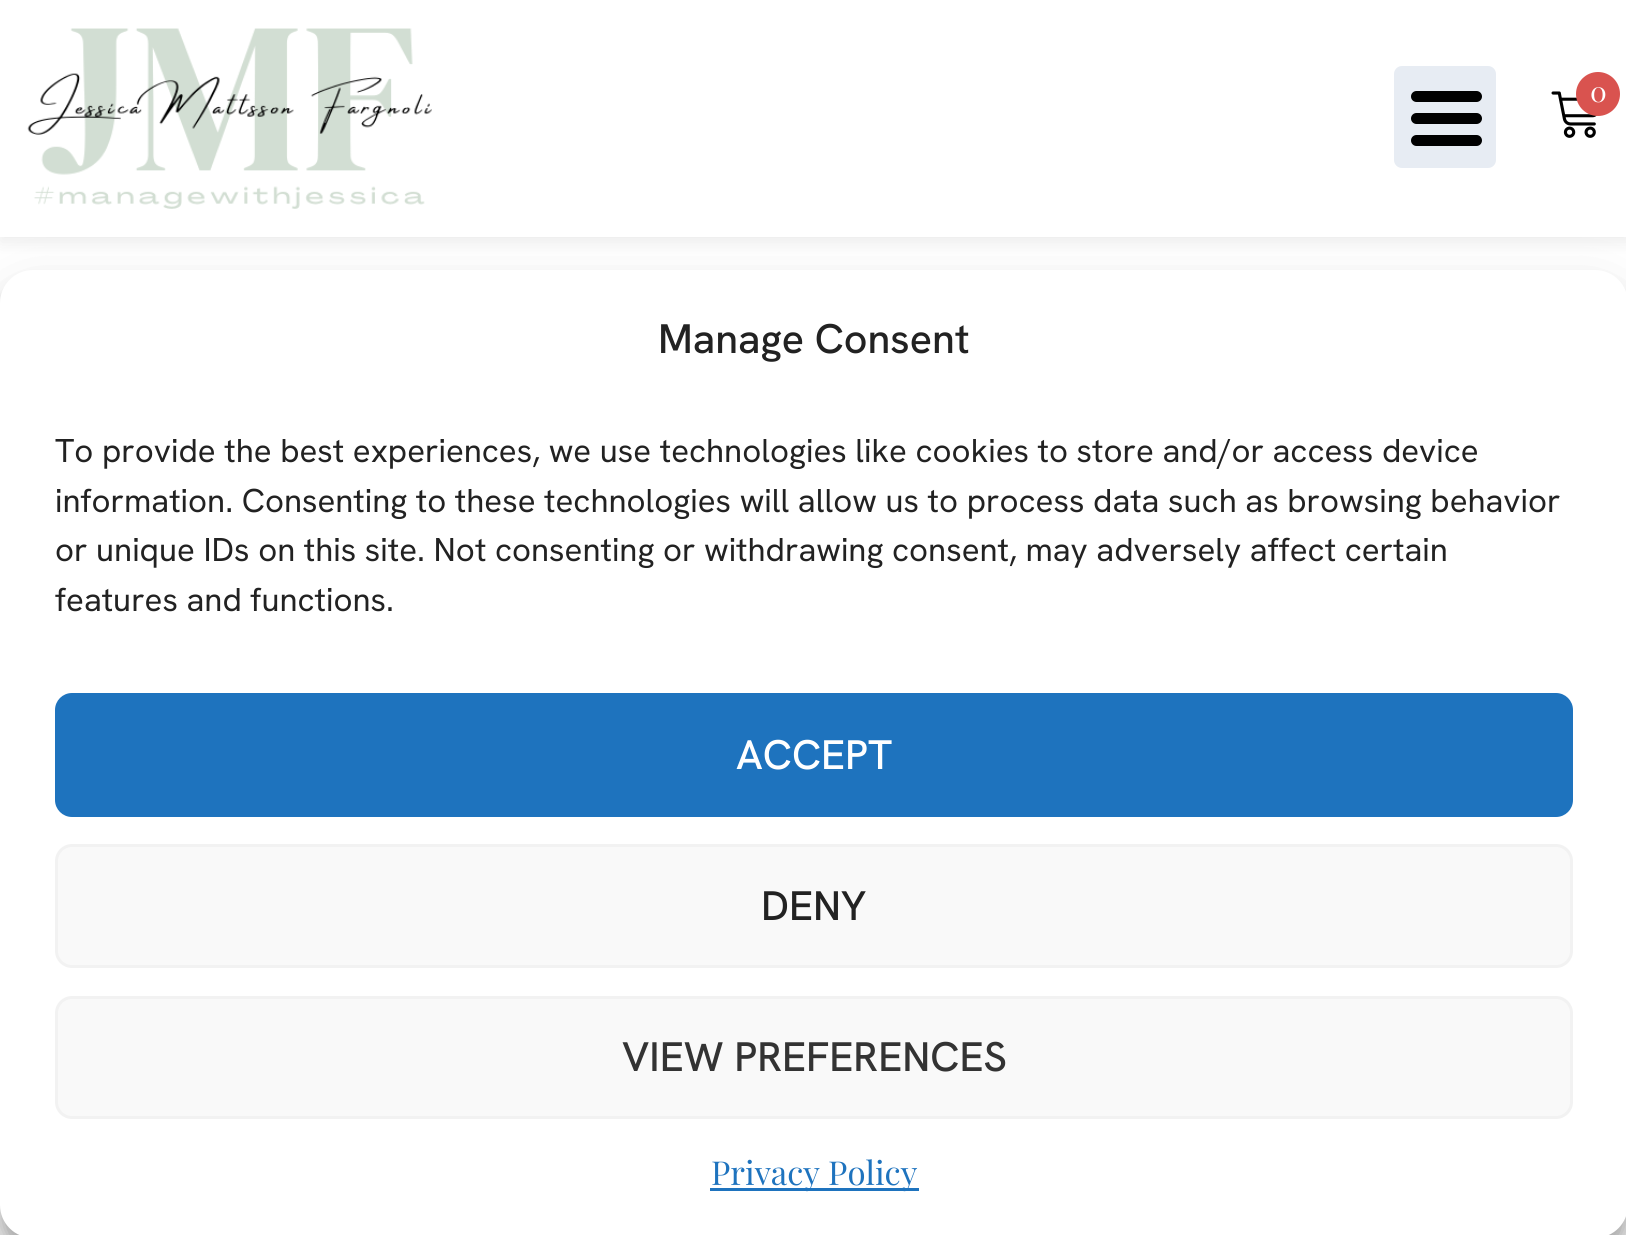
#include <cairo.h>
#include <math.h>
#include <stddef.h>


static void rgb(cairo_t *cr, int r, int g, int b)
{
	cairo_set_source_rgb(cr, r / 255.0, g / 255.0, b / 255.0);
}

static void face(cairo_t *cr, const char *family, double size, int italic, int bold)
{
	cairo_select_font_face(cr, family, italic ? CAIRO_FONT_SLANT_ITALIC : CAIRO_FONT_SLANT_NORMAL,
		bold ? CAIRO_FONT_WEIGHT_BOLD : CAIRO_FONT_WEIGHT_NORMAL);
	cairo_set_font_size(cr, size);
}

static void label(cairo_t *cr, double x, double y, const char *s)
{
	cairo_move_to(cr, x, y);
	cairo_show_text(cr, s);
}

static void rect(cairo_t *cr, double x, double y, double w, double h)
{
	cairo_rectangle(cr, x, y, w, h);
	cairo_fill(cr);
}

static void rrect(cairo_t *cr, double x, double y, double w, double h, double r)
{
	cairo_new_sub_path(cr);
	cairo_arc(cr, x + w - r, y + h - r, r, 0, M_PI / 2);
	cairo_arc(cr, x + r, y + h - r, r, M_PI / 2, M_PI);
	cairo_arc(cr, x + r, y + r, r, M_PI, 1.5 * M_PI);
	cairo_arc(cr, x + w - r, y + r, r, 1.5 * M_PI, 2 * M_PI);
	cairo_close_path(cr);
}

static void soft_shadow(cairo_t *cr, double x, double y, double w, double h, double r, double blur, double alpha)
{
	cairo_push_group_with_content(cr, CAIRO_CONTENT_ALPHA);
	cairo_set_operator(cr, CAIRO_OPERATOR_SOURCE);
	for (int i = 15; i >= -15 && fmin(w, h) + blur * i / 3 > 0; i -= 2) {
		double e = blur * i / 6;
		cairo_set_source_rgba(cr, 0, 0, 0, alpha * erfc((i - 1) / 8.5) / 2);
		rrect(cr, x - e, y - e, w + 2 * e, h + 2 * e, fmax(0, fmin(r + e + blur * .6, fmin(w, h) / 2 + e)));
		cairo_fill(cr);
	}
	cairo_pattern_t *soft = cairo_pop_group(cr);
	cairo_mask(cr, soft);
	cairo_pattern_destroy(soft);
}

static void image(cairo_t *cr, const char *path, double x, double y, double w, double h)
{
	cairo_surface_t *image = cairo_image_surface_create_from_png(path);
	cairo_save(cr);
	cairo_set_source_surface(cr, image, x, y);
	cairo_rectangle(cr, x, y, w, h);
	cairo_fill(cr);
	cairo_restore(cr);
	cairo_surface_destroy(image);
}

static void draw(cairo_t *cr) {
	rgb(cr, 255, 255, 255);
	cairo_paint(cr);
	rgb(cr, 0, 0, 0);
	soft_shadow(cr, 0, 6, 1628, 236, 0, 8, 0.08);
	rgb(cr, 255, 255, 255);
	rect(cr, 0, 0, 1626, 237);
	image(cr, "image0.png", 27, 28, 405, 181);
	rgb(cr, 231, 236, 243);
	rrect(cr, 1394, 66, 102, 102, 8);
	cairo_fill(cr);
	rgb(cr, 0, 0, 0);
	rrect(cr, 1411, 113, 71, 11, 5.5);
	cairo_fill(cr);
	rrect(cr, 1411, 91, 71, 11, 5.5);
	cairo_fill(cr);
	rrect(cr, 1411, 135, 71, 11, 5.5);
	cairo_fill(cr);
	image(cr, "image1.png", 1551, 91, 47, 47);
	rgb(cr, 217, 83, 79);
	cairo_arc(cr, 1598, 94, 22, 0, 2 * M_PI);
	cairo_fill(cr);
	face(cr, "Playfair Display", 28, 0, 0);
	rgb(cr, 255, 255, 255);
	label(cr, 1590, 102, "0");
	rgb(cr, 0, 0, 0);
	soft_shadow(cr, 0, 286, 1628, 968, 33, 8, 0.23);
	soft_shadow(cr, 0, 297, 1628, 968, 33, 27.5, 0.19);
	rgb(cr, 255, 255, 255);
	rrect(cr, 0, 270, 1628, 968, 33);
	cairo_fill(cr);
	face(cr, "Hanken Grotesk Medium", 41.25, 0, 0);
	rgb(cr, 34, 34, 34);
	label(cr, 658, 353, "Manage Consent");
	face(cr, "Hanken Grotesk", 33, 0, 0);
	label(cr, 55, 462, "To provide the best experiences, we use technologies like cookies to store and/or access device");
	label(cr, 55, 512, "information. Consenting to these technologies will allow us to process data such as browsing behavior");
	label(cr, 55, 561, "or unique IDs on this site. Not consenting or withdrawing consent, may adversely affect certain");
	label(cr, 55, 611, "features and functions.");
	rgb(cr, 30, 115, 190);
	rrect(cr, 56.5, 694.5, 1515, 121, 15.5);
	cairo_fill_preserve(cr);
	cairo_set_line_width(cr, 3);
	cairo_stroke(cr);
	face(cr, "Hanken Grotesk Medium", 41.25, 0, 0);
	rgb(cr, 255, 255, 255);
	label(cr, 736, 769, "ACCEPT");
	rgb(cr, 249, 249, 249);
	rrect(cr, 56.5, 845.5, 1515, 121, 15.5);
	cairo_fill_preserve(cr);
	rgb(cr, 242, 242, 242);
	cairo_stroke(cr);
	rgb(cr, 34, 34, 34);
	label(cr, 761, 920, "DENY");
	rgb(cr, 249, 249, 249);
	rrect(cr, 56.5, 997.5, 1515, 120, 15.5);
	cairo_fill_preserve(cr);
	rgb(cr, 242, 242, 242);
	cairo_stroke(cr);
	rgb(cr, 51, 51, 51);
	label(cr, 622, 1071, "VIEW PREFERENCES");
	rgb(cr, 30, 115, 190);
	rect(cr, 710, 1188, 209, 3);
	face(cr, "Playfair Display", 33, 0, 0);
	label(cr, 711, 1185, "Privacy Policy");
}

int main(void) {
	cairo_surface_t *surface = cairo_image_surface_create(CAIRO_FORMAT_RGB24, 1626, 1235);
	cairo_t *cr = cairo_create(surface);
	cairo_font_options_t *options = cairo_font_options_create();
	cairo_font_options_set_hint_metrics(options, CAIRO_HINT_METRICS_OFF);
	cairo_font_options_set_hint_style(options, CAIRO_HINT_STYLE_NONE);
	cairo_set_font_options(cr, options);
	cairo_set_miter_limit(cr, 4);
	draw(cr);
	cairo_surface_write_to_png(surface, "render.png");
	cairo_font_options_destroy(options);
	cairo_destroy(cr);
	cairo_surface_destroy(surface);
	return 0;
}
